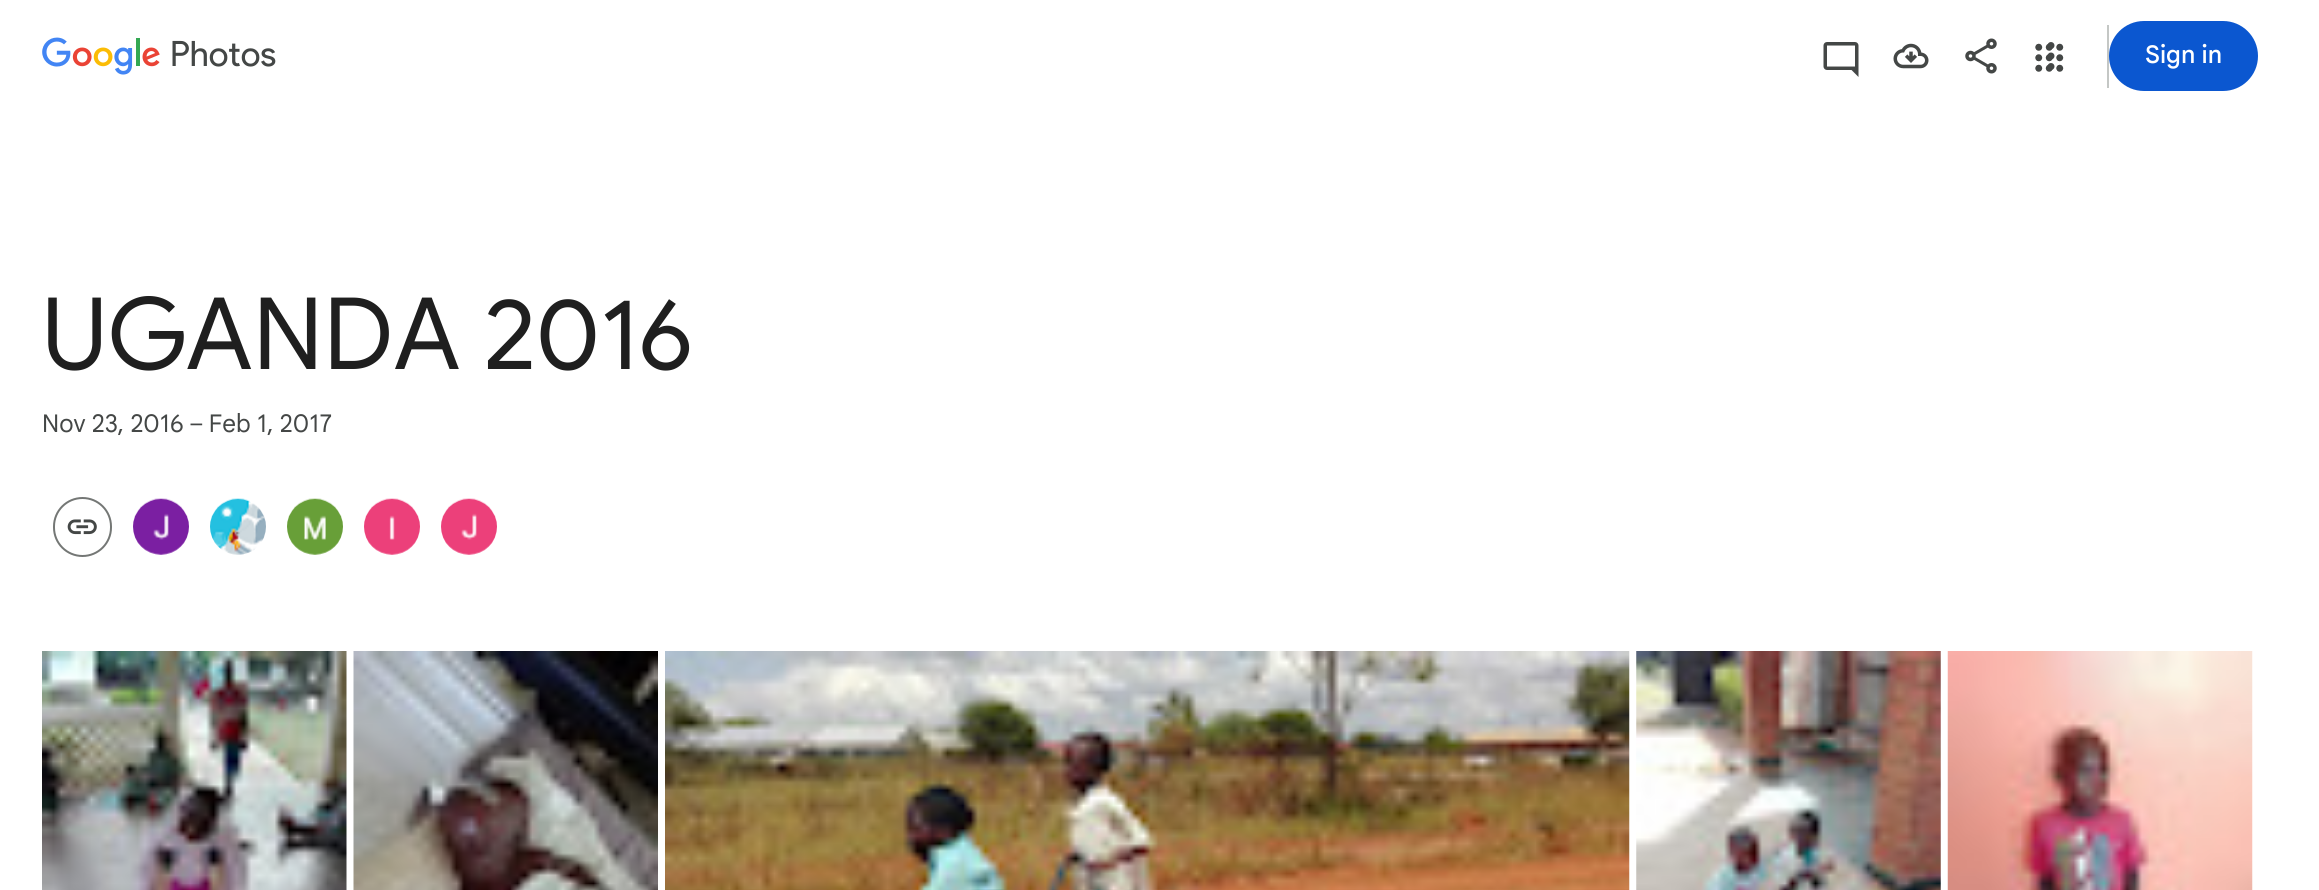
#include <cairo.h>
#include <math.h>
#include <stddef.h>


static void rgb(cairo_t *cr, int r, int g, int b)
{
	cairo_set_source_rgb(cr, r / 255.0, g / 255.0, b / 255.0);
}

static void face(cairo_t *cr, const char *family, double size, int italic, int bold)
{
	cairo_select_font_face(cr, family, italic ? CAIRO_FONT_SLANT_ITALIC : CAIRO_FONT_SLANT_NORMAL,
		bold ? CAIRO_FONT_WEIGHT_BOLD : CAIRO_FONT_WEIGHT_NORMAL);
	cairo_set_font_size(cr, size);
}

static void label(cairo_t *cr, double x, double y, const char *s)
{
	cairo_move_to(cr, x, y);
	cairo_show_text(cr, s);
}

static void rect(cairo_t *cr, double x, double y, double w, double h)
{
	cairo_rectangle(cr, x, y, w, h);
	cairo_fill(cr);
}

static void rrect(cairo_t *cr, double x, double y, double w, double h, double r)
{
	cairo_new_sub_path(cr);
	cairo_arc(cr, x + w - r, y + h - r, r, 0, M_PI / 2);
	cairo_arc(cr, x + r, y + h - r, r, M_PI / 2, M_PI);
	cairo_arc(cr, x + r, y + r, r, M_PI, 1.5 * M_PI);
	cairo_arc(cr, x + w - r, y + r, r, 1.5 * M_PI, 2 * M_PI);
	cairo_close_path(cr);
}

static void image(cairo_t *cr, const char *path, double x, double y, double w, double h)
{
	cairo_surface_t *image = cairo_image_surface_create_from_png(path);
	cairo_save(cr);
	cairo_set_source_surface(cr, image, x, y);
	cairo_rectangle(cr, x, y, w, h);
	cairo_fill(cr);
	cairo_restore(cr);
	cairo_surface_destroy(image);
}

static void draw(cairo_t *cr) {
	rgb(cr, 255, 255, 255);
	cairo_paint(cr);
	image(cr, "image0.png", 42, 37, 118, 38);
	face(cr, "Product Sans", 35, 0, 0);
	rgb(cr, 68, 71, 70);
	label(cr, 170, 66, "Photos");
	image(cr, "image1.png", 1823, 42, 36, 35);
	image(cr, "image2.png", 1893, 43, 36, 26);
	image(cr, "image3.png", 1965, 38, 32, 36);
	image(cr, "image4.png", 2047, 42, 8, 28);
	rgb(cr, 196, 199, 197);
	rect(cr, 2107, 25, 2, 63);
	face(cr, "Google Sans", 99.75, 0, 0);
	rgb(cr, 31, 31, 31);
	label(cr, 42, 369, "UGANDA 2016");
	face(cr, "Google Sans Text", 24.5, 0, 0);
	rgb(cr, 68, 71, 70);
	label(cr, 42, 432, "Nov 23, 2016 – Feb 1, 2017");
	rrect(cr, 54, 498, 57, 58, 28.5);
	rgb(cr, 116, 119, 117);
	cairo_stroke(cr);
	image(cr, "image5.png", 67, 519, 30, 16);
	image(cr, "image6.png", 133, 498, 56, 57);
	image(cr, "image7.png", 210, 498, 56, 57);
	image(cr, "image8.png", 287, 498, 56, 57);
	image(cr, "image9.png", 364, 498, 56, 57);
	image(cr, "image10.png", 441, 498, 56, 57);
	image(cr, "image11.png", 42, 651, 305, 239);
	image(cr, "image12.png", 353, 651, 305, 239);
	image(cr, "image13.png", 665, 651, 965, 239);
	image(cr, "image14.png", 1636, 651, 305, 239);
	image(cr, "image15.png", 1947, 651, 306, 239);
	image(cr, "image16.png", 2035, 43, 29, 29);
	rgb(cr, 11, 87, 208);
	rrect(cr, 2109, 21, 149, 70, 35);
	cairo_fill(cr);
	face(cr, "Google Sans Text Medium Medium", 24.5, 0, 0);
	rgb(cr, 255, 255, 255);
	label(cr, 2145, 63, "Sign in");
}

int main(void) {
	cairo_surface_t *surface = cairo_image_surface_create(CAIRO_FORMAT_RGB24, 2319, 890);
	cairo_t *cr = cairo_create(surface);
	cairo_font_options_t *options = cairo_font_options_create();
	cairo_font_options_set_hint_metrics(options, CAIRO_HINT_METRICS_OFF);
	cairo_font_options_set_hint_style(options, CAIRO_HINT_STYLE_NONE);
	cairo_set_font_options(cr, options);
	cairo_set_miter_limit(cr, 4);
	draw(cr);
	cairo_surface_write_to_png(surface, "render.png");
	cairo_font_options_destroy(options);
	cairo_destroy(cr);
	cairo_surface_destroy(surface);
	return 0;
}
